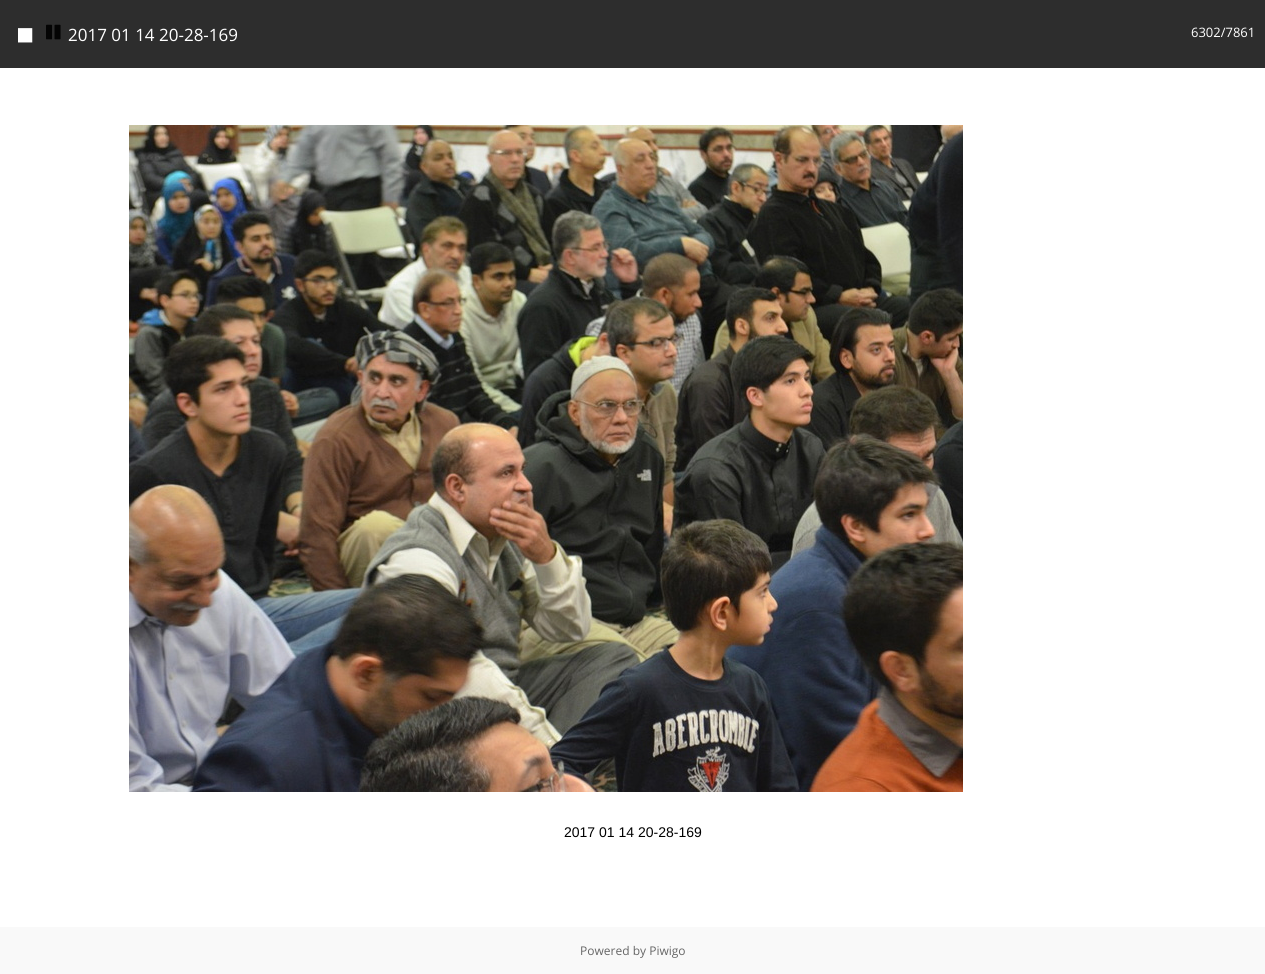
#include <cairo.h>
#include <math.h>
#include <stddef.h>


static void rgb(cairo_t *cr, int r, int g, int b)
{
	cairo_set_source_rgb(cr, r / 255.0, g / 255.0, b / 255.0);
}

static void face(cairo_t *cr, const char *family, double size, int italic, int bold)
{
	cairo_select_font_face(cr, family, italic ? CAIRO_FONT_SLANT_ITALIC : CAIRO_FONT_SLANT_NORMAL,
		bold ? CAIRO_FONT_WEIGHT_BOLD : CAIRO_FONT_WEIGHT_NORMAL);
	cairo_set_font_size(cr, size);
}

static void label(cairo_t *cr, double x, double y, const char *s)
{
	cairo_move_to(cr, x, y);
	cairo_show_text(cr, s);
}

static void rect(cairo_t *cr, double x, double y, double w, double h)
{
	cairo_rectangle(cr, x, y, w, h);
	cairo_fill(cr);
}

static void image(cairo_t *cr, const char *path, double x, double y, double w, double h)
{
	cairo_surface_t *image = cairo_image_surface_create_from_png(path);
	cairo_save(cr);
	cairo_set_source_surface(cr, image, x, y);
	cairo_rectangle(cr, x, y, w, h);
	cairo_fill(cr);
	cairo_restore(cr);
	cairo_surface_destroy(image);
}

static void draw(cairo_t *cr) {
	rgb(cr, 255, 255, 255);
	cairo_paint(cr);
	rgb(cr, 45, 45, 45);
	rect(cr, 0, 0, 1265, 68);
	face(cr, "DejaVu Sans", 22, 0, 0);
	rgb(cr, 255, 255, 255);
	label(cr, 16, 41, "◼");
	image(cr, "image0.png", 46, 24, 15, 16);
	face(cr, "Open Sans", 17, 0, 0);
	label(cr, 68, 41, "2017 01 14 20-28-169");
	face(cr, "Open Sans", 13, 0, 0);
	label(cr, 1191, 37, "6302/7861");
	image(cr, "image1.png", 129, 125, 834, 667);
	face(cr, "Liberation Sans", 14, 0, 0);
	rgb(cr, 0, 0, 0);
	label(cr, 564, 837, "2017 01 14 20-28-169");
	rgb(cr, 249, 249, 249);
	rect(cr, 0, 927, 1265, 47);
	face(cr, "Open Sans", 12, 0, 0);
	rgb(cr, 102, 102, 102);
	label(cr, 580, 955, "Powered by Piwigo");
}

int main(void) {
	cairo_surface_t *surface = cairo_image_surface_create(CAIRO_FORMAT_RGB24, 1265, 974);
	cairo_t *cr = cairo_create(surface);
	cairo_font_options_t *options = cairo_font_options_create();
	cairo_font_options_set_hint_metrics(options, CAIRO_HINT_METRICS_OFF);
	cairo_font_options_set_hint_style(options, CAIRO_HINT_STYLE_NONE);
	cairo_set_font_options(cr, options);
	cairo_set_miter_limit(cr, 4);
	draw(cr);
	cairo_surface_write_to_png(surface, "render.png");
	cairo_font_options_destroy(options);
	cairo_destroy(cr);
	cairo_surface_destroy(surface);
	return 0;
}
